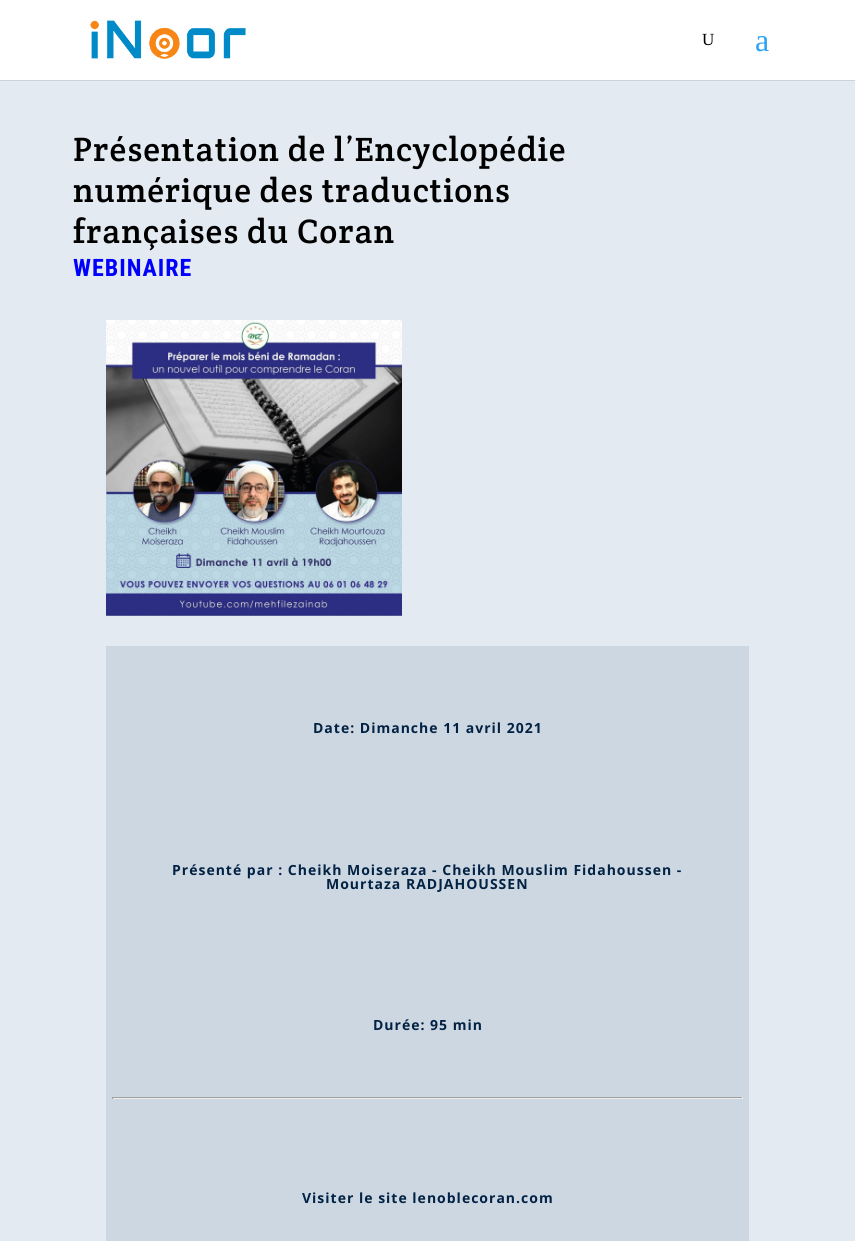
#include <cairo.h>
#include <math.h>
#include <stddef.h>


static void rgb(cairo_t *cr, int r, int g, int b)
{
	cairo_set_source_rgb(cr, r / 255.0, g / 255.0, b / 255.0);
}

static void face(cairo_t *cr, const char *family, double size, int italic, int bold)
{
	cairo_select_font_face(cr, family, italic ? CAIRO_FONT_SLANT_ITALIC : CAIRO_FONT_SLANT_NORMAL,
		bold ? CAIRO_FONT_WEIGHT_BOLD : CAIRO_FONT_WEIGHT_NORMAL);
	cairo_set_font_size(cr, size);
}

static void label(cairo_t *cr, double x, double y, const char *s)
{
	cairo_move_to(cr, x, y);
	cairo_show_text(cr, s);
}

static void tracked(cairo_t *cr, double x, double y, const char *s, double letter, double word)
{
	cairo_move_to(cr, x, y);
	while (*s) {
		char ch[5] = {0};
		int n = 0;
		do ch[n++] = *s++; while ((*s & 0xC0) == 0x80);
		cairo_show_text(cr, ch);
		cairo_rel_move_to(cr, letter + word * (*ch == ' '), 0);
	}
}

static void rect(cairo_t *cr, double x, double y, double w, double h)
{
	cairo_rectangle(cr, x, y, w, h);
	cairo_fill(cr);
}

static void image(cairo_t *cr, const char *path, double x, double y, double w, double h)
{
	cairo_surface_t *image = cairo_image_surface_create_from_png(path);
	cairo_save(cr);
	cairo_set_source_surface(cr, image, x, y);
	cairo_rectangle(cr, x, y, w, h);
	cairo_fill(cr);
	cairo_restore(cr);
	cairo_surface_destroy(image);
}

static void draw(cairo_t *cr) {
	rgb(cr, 227, 234, 241);
	cairo_paint(cr);
	rgb(cr, 204, 211, 217);
	rect(cr, 0, 80, 855, 1);
	rgb(cr, 255, 255, 255);
	rect(cr, 0, 0, 855, 80);
	image(cr, "image0.png", 90, 20, 156, 39);
	face(cr, "Liberation Serif", 17, 0, 0);
	rgb(cr, 0, 0, 0);
	label(cr, 702, 45, "U");
	face(cr, "Liberation Serif", 32, 0, 0);
	rgb(cr, 46, 163, 242);
	label(cr, 755, 51, "a");
	face(cr, "Crete Round", 34, 0, 0);
	rgb(cr, 0, 0, 0);
	tracked(cr, 73, 161, "Présentation de l’Encyclopédie", 1, 0);
	tracked(cr, 73, 202, "numérique des traductions", 1, 0);
	tracked(cr, 73, 243, "françaises du Coran", 1, 0);
	face(cr, "Roboto Condensed", 24, 0, 1);
	rgb(cr, 0, 0, 255);
	tracked(cr, 73, 276, "WEBINAIRE", 1, 0);
	image(cr, "image1.png", 106, 320, 296, 296);
	rgb(cr, 205, 215, 226);
	rect(cr, 106, 646, 643, 595);
	face(cr, "Open Sans", 14, 0, 1);
	rgb(cr, 2, 34, 67);
	tracked(cr, 313, 733, "Date: Dimanche 11 avril 2021", 1, 0);
	tracked(cr, 172, 875, "Présenté par : Cheikh Moiseraza - Cheikh Mouslim Fidahoussen -", 1, 0);
	tracked(cr, 326, 889, "Mourtaza RADJAHOUSSEN", 1, 0);
	tracked(cr, 373, 1030, "Durée: 95 min", 1, 0);
	rgb(cr, 159, 159, 159);
	rect(cr, 112, 1097, 631, 1);
	rgb(cr, 238, 238, 238);
	rect(cr, 742, 1097, 1, 2);
	rect(cr, 112, 1098, 631, 1);
	rgb(cr, 159, 159, 159);
	rect(cr, 112, 1097, 1, 2);
	rgb(cr, 2, 34, 67);
	tracked(cr, 302, 1203, "Visiter le site lenoblecoran.com", 1, 0);
}

int main(void) {
	cairo_surface_t *surface = cairo_image_surface_create(CAIRO_FORMAT_RGB24, 855, 1241);
	cairo_t *cr = cairo_create(surface);
	cairo_font_options_t *options = cairo_font_options_create();
	cairo_font_options_set_hint_metrics(options, CAIRO_HINT_METRICS_OFF);
	cairo_font_options_set_hint_style(options, CAIRO_HINT_STYLE_NONE);
	cairo_set_font_options(cr, options);
	cairo_set_miter_limit(cr, 4);
	draw(cr);
	cairo_surface_write_to_png(surface, "render.png");
	cairo_font_options_destroy(options);
	cairo_destroy(cr);
	cairo_surface_destroy(surface);
	return 0;
}
